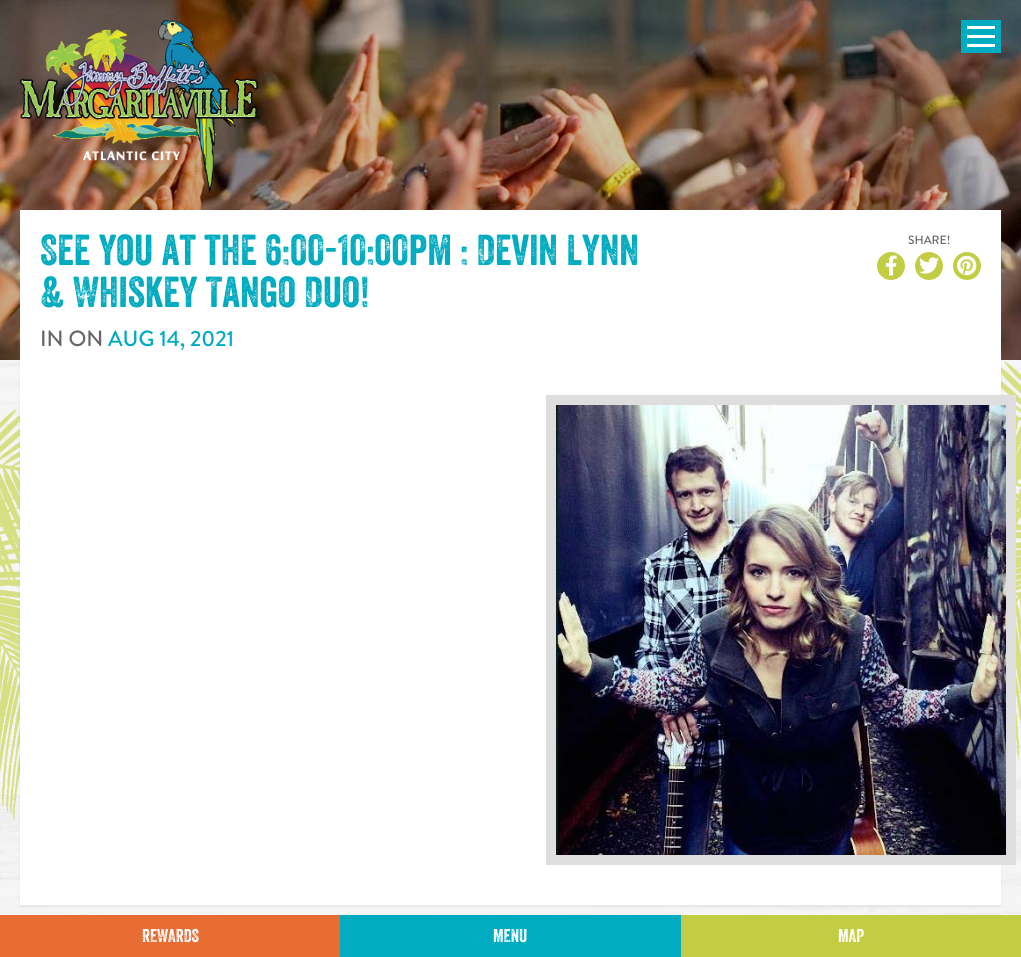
#include <cairo.h>
#include <math.h>
#include <stddef.h>


static void rgb(cairo_t *cr, int r, int g, int b)
{
	cairo_set_source_rgb(cr, r / 255.0, g / 255.0, b / 255.0);
}

static void face(cairo_t *cr, const char *family, double size, int italic, int bold)
{
	cairo_select_font_face(cr, family, italic ? CAIRO_FONT_SLANT_ITALIC : CAIRO_FONT_SLANT_NORMAL,
		bold ? CAIRO_FONT_WEIGHT_BOLD : CAIRO_FONT_WEIGHT_NORMAL);
	cairo_set_font_size(cr, size);
}

static void label(cairo_t *cr, double x, double y, const char *s)
{
	cairo_move_to(cr, x, y);
	cairo_show_text(cr, s);
}

static void rect(cairo_t *cr, double x, double y, double w, double h)
{
	cairo_rectangle(cr, x, y, w, h);
	cairo_fill(cr);
}

static void rrect(cairo_t *cr, double x, double y, double w, double h, double r)
{
	cairo_new_sub_path(cr);
	cairo_arc(cr, x + w - r, y + h - r, r, 0, M_PI / 2);
	cairo_arc(cr, x + r, y + h - r, r, M_PI / 2, M_PI);
	cairo_arc(cr, x + r, y + r, r, M_PI, 1.5 * M_PI);
	cairo_arc(cr, x + w - r, y + r, r, 1.5 * M_PI, 2 * M_PI);
	cairo_close_path(cr);
}

static void soft_shadow(cairo_t *cr, double x, double y, double w, double h, double r, double blur, double alpha)
{
	cairo_push_group_with_content(cr, CAIRO_CONTENT_ALPHA);
	cairo_set_operator(cr, CAIRO_OPERATOR_SOURCE);
	for (int i = 15; i >= -15 && fmin(w, h) + blur * i / 3 > 0; i -= 2) {
		double e = blur * i / 6;
		cairo_set_source_rgba(cr, 0, 0, 0, alpha * erfc((i - 1) / 8.5) / 2);
		rrect(cr, x - e, y - e, w + 2 * e, h + 2 * e, fmax(0, fmin(r + e + blur * .6, fmin(w, h) / 2 + e)));
		cairo_fill(cr);
	}
	cairo_pattern_t *soft = cairo_pop_group(cr);
	cairo_mask(cr, soft);
	cairo_pattern_destroy(soft);
}

static void image(cairo_t *cr, const char *path, double x, double y, double w, double h)
{
	cairo_surface_t *image = cairo_image_surface_create_from_png(path);
	cairo_save(cr);
	cairo_set_source_surface(cr, image, x, y);
	cairo_rectangle(cr, x, y, w, h);
	cairo_fill(cr);
	cairo_restore(cr);
	cairo_surface_destroy(image);
}

static void draw(cairo_t *cr) {
	rgb(cr, 255, 255, 255);
	cairo_paint(cr);
	image(cr, "image0.png", 0, 360, 1021, 555);
	image(cr, "image2.png", 0, 0, 1021, 360);
	image(cr, "image1.png", 20, 20, 240, 173);
	rgb(cr, 1, 171, 192);
	rect(cr, 961, 20, 40, 33);
	rgb(cr, 255, 255, 255);
	rect(cr, 967, 26, 28, 3);
	rect(cr, 967, 35, 28, 3);
	rect(cr, 967, 44, 28, 3);
	image(cr, "image3.png", 0, 361, 1021, 460);
	rgb(cr, 103, 103, 103);
	soft_shadow(cr, 20, 212, 981, 695, 0, 1, 0.1);
	rgb(cr, 255, 255, 255);
	rect(cr, 20, 210, 981, 695);
	face(cr, "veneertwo", 42, 0, 0);
	rgb(cr, 1, 171, 192);
	label(cr, 40, 265, "See you at the 6:00-10:00pm : Devin Lynn");
	label(cr, 40, 307, "& Whiskey Tango Duo!");
	face(cr, "Brandon Grotesque Medium", 22, 0, 0);
	rgb(cr, 103, 103, 103);
	label(cr, 40, 346, "IN ON");
	rgb(cr, 1, 171, 192);
	label(cr, 108, 346, "AUG 14, 2021");
	face(cr, "Brandon Grotesque Medium", 12, 0, 0);
	rgb(cr, 103, 103, 103);
	label(cr, 908, 244, "SHARE!");
	rgb(cr, 194, 205, 67);
	cairo_new_path(cr);
	cairo_arc(cr, 891, 266, 14, 0, 2 * M_PI);
	cairo_fill(cr);
	image(cr, "image4.png", 885, 255, 12, 21);
	cairo_arc(cr, 929, 266, 14, 0, 2 * M_PI);
	cairo_fill(cr);
	image(cr, "image5.png", 919, 257, 20, 17);
	cairo_arc(cr, 967, 266, 14, 0, 2 * M_PI);
	cairo_fill(cr);
	image(cr, "image6.png", 957, 255, 20, 21);
	cairo_rectangle(cr, 551, 400, 460, 460);
	rgb(cr, 222, 222, 222);
	cairo_set_line_width(cr, 10);
	cairo_stroke(cr);
	image(cr, "image7.png", 556, 405, 450, 450);
	rgb(cr, 232, 109, 50);
	rect(cr, 0, 915, 340, 42);
	face(cr, "veneertwo", 18, 0, 0);
	rgb(cr, 255, 255, 255);
	label(cr, 142, 942, "REWARDS");
	rgb(cr, 1, 171, 192);
	rect(cr, 340, 915, 341, 42);
	rgb(cr, 255, 255, 255);
	label(cr, 493, 942, "MENU");
	rgb(cr, 194, 205, 67);
	rect(cr, 681, 915, 340, 42);
	rgb(cr, 255, 255, 255);
	label(cr, 838, 942, "MAP");
}

int main(void) {
	cairo_surface_t *surface = cairo_image_surface_create(CAIRO_FORMAT_RGB24, 1021, 957);
	cairo_t *cr = cairo_create(surface);
	cairo_font_options_t *options = cairo_font_options_create();
	cairo_font_options_set_hint_metrics(options, CAIRO_HINT_METRICS_OFF);
	cairo_font_options_set_hint_style(options, CAIRO_HINT_STYLE_NONE);
	cairo_set_font_options(cr, options);
	cairo_set_miter_limit(cr, 4);
	draw(cr);
	cairo_surface_write_to_png(surface, "render.png");
	cairo_font_options_destroy(options);
	cairo_destroy(cr);
	cairo_surface_destroy(surface);
	return 0;
}
